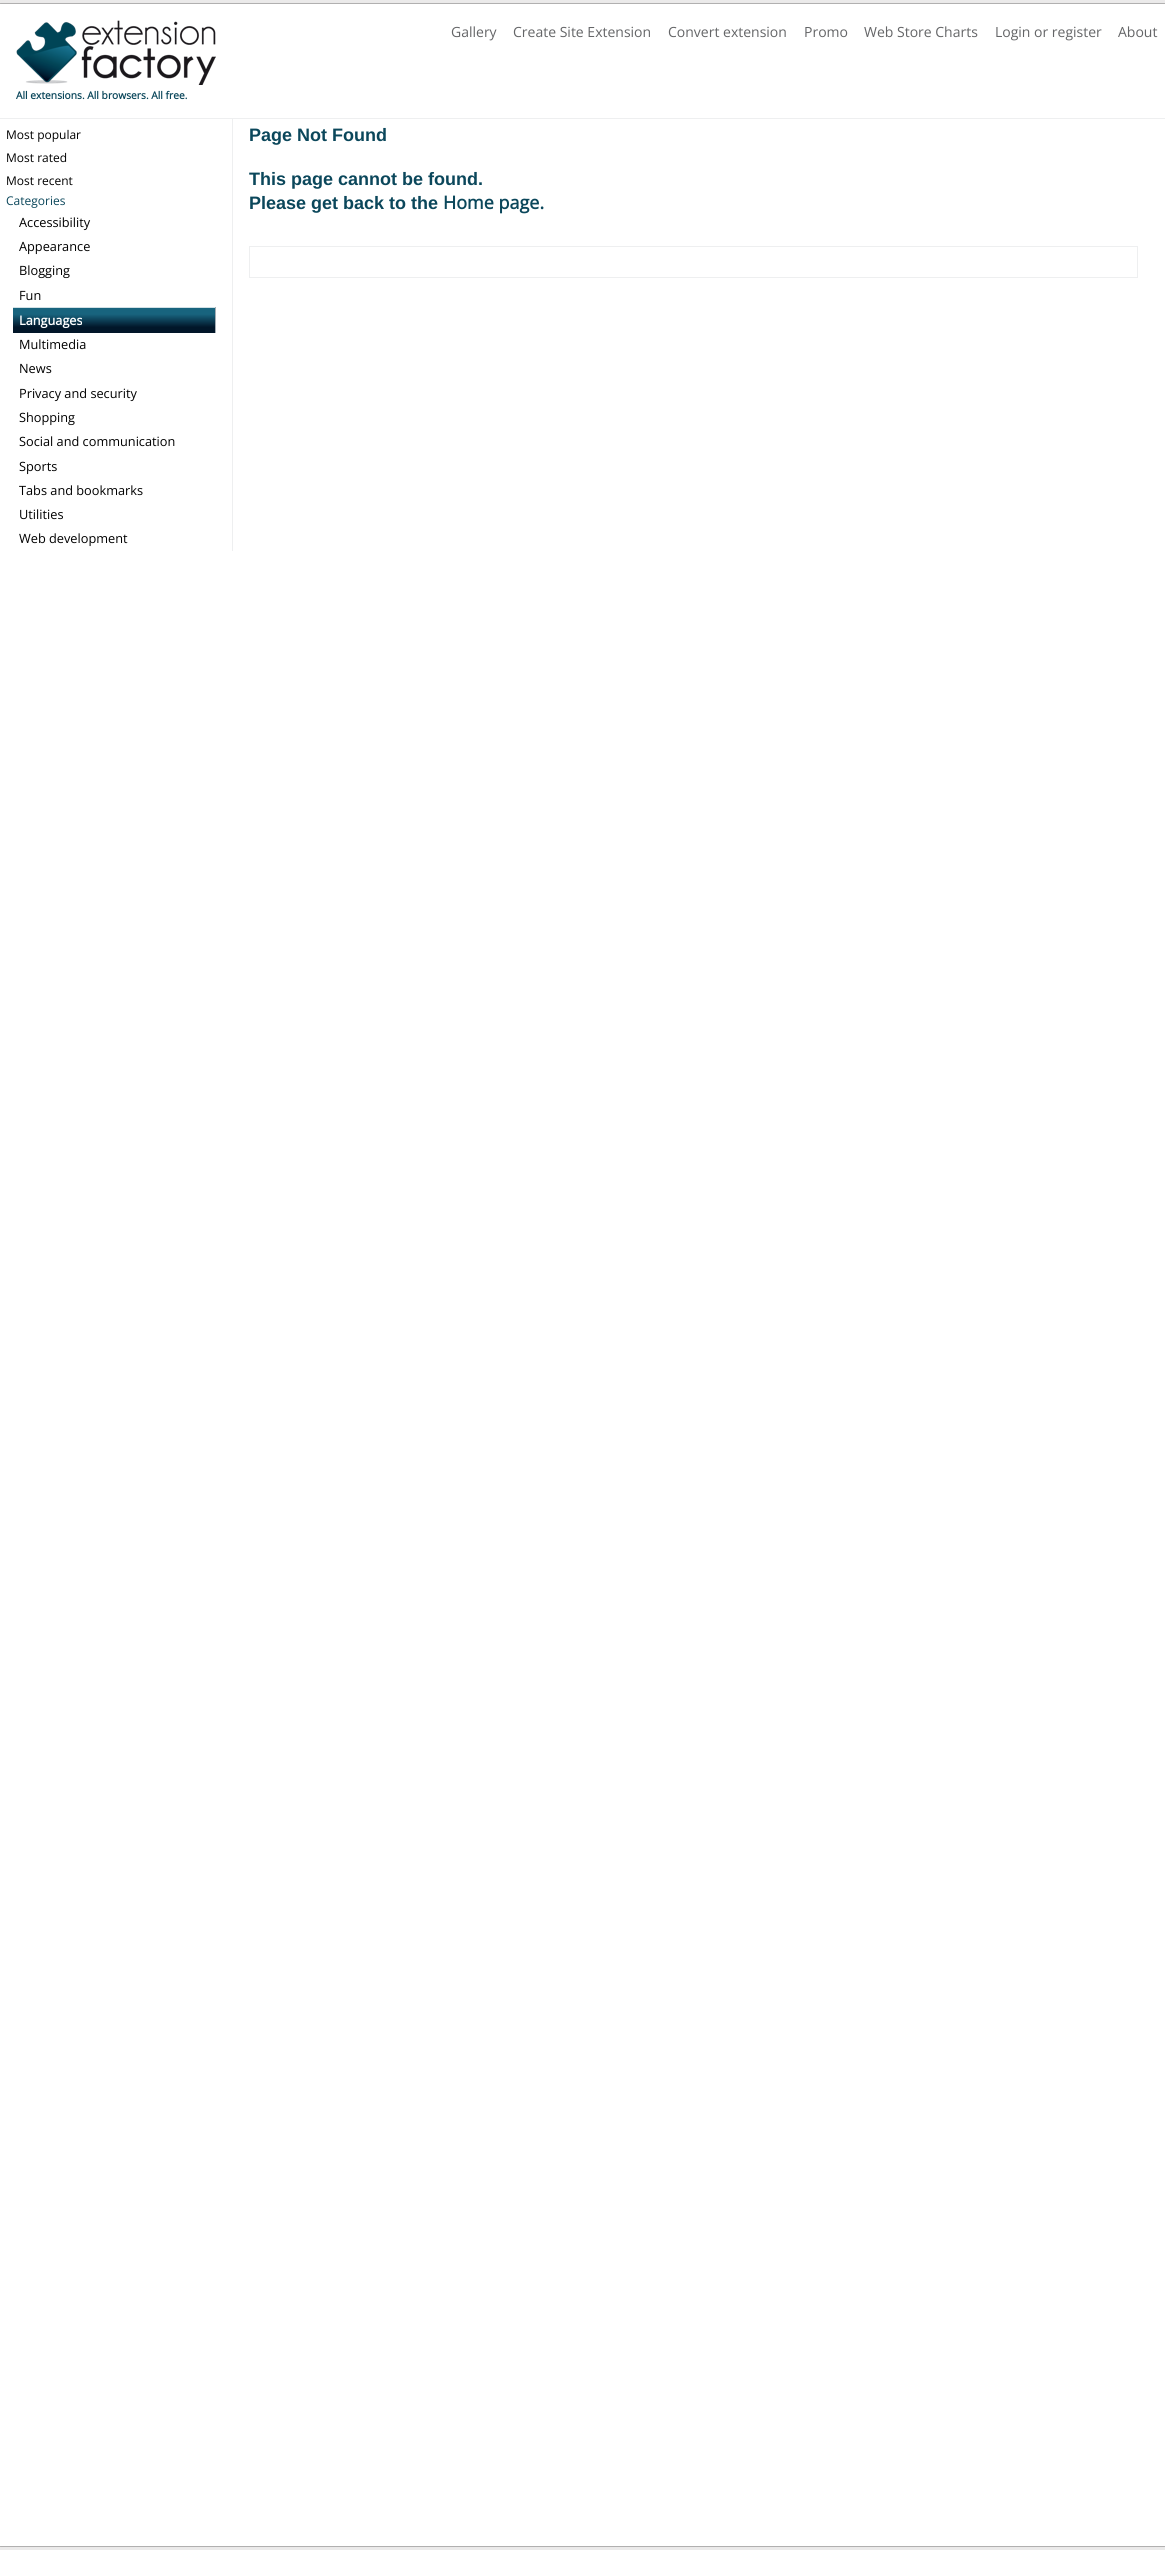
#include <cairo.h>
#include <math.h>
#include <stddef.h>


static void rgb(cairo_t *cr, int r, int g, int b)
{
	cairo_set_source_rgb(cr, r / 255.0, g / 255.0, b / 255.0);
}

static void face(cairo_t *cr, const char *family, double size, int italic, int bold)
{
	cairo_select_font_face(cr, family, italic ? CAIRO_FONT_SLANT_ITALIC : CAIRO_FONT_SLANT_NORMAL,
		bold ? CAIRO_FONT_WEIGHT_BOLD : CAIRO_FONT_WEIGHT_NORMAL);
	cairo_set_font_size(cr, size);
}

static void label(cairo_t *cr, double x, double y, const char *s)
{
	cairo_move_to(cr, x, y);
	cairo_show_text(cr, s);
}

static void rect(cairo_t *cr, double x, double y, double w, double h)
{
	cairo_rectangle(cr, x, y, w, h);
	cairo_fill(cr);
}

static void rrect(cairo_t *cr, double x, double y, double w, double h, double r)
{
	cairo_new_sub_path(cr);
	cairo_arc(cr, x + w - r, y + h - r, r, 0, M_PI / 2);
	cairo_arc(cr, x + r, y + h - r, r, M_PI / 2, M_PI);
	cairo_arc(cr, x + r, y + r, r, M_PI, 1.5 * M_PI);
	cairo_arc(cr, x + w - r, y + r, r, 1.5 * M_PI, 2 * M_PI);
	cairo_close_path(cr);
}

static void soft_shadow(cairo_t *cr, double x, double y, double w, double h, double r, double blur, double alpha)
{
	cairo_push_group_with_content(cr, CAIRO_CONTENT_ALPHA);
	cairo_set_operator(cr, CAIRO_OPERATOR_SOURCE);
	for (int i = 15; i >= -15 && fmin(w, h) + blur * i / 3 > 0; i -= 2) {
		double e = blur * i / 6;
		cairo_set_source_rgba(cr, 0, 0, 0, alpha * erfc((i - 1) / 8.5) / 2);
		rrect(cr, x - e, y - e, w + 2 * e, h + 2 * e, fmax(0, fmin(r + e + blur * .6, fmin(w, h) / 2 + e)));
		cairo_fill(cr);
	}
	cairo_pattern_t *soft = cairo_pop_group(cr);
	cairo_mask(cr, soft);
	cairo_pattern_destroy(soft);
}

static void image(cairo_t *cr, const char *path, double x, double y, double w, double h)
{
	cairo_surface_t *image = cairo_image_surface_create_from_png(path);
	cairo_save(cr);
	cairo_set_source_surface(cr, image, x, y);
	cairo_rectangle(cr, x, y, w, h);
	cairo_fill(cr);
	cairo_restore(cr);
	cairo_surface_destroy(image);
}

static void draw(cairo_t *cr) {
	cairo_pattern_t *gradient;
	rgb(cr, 235, 234, 234);
	cairo_paint(cr);
	rgb(cr, 0, 0, 0);
	soft_shadow(cr, 0, 4, 1165, 2542, 0, 0.5, 1);
	rgb(cr, 255, 255, 255);
	rect(cr, 0, 4, 1165, 2542);
	rgb(cr, 238, 239, 240);
	rect(cr, 0, 118, 1165, 1);
	face(cr, "Open Sans", 14, 0, 0);
	rgb(cr, 100, 101, 103);
	label(cr, 451, 37, "Gallery");
	label(cr, 513, 37, "Create Site Extension");
	label(cr, 668, 37, "Convert extension");
	label(cr, 804, 37, "Promo");
	label(cr, 864, 37, "Web Store Charts");
	label(cr, 995, 37, "Login or register");
	label(cr, 1118, 37, "About");
	image(cr, "image0.png", 16, 20, 200, 65);
	face(cr, "Open Sans", 10.25, 0, 1);
	rgb(cr, 11, 71, 91);
	label(cr, 16, 99, "All extensions. All browsers. All free.");
	rgb(cr, 238, 239, 240);
	rect(cr, 232, 119, 1, 432);
	face(cr, "Open Sans", 12, 0, 0);
	rgb(cr, 0, 0, 0);
	label(cr, 6, 139, "Most popular");
	label(cr, 6, 162, "Most rated");
	label(cr, 6, 185, "Most recent");
	rgb(cr, 11, 71, 91);
	label(cr, 6, 205, "Categories");
	face(cr, "Open Sans", 12.75, 0, 0);
	rgb(cr, 0, 0, 0);
	label(cr, 19, 227, "Accessibility");
	label(cr, 19, 251, "Appearance");
	label(cr, 19, 275, "Blogging");
	label(cr, 19, 300, "Fun");
	gradient = cairo_pattern_create_linear(13, 333, 13, 308);
	cairo_pattern_add_color_stop_rgba(gradient, 0.23, 0.004, 0.086, 0.161, 1);
	cairo_pattern_add_color_stop_rgba(gradient, 0.75, 0.094, 0.392, 0.494, 1);
	cairo_set_source(cr, gradient);
	cairo_pattern_destroy(gradient);
	rect(cr, 13, 308, 202, 25);
	rgb(cr, 209, 224, 229);
	rect(cr, 13, 307, 203, 1);
	rgb(cr, 165, 174, 181);
	rect(cr, 215, 307, 1, 26);
	face(cr, "Open Sans", 12.75, 0, 1);
	rgb(cr, 255, 255, 255);
	label(cr, 19, 325, "Languages");
	face(cr, "Open Sans", 12.75, 0, 0);
	rgb(cr, 0, 0, 0);
	label(cr, 19, 349, "Multimedia");
	label(cr, 19, 373, "News");
	label(cr, 19, 398, "Privacy and security");
	label(cr, 19, 422, "Shopping");
	label(cr, 19, 446, "Social and communication");
	label(cr, 19, 471, "Sports");
	label(cr, 19, 495, "Tabs and bookmarks");
	label(cr, 19, 519, "Utilities");
	label(cr, 19, 543, "Web development");
	face(cr, "Liberation Sans", 18, 0, 1);
	rgb(cr, 11, 71, 91);
	label(cr, 249, 141, "Page Not Found");
	label(cr, 249, 185, "This page cannot be found.");
	label(cr, 249, 209, "Please get back to the");
	face(cr, "Open Sans", 18, 0, 1);
	label(cr, 443, 209, "Home page.");
	cairo_rectangle(cr, 249.5, 246.5, 888, 31);
	rgb(cr, 238, 239, 240);
	cairo_set_line_width(cr, 1);
	cairo_stroke(cr);
}

int main(void) {
	cairo_surface_t *surface = cairo_image_surface_create(CAIRO_FORMAT_RGB24, 1165, 2550);
	cairo_t *cr = cairo_create(surface);
	cairo_font_options_t *options = cairo_font_options_create();
	cairo_font_options_set_hint_metrics(options, CAIRO_HINT_METRICS_OFF);
	cairo_font_options_set_hint_style(options, CAIRO_HINT_STYLE_NONE);
	cairo_set_font_options(cr, options);
	cairo_set_miter_limit(cr, 4);
	draw(cr);
	cairo_surface_write_to_png(surface, "render.png");
	cairo_font_options_destroy(options);
	cairo_destroy(cr);
	cairo_surface_destroy(surface);
	return 0;
}
